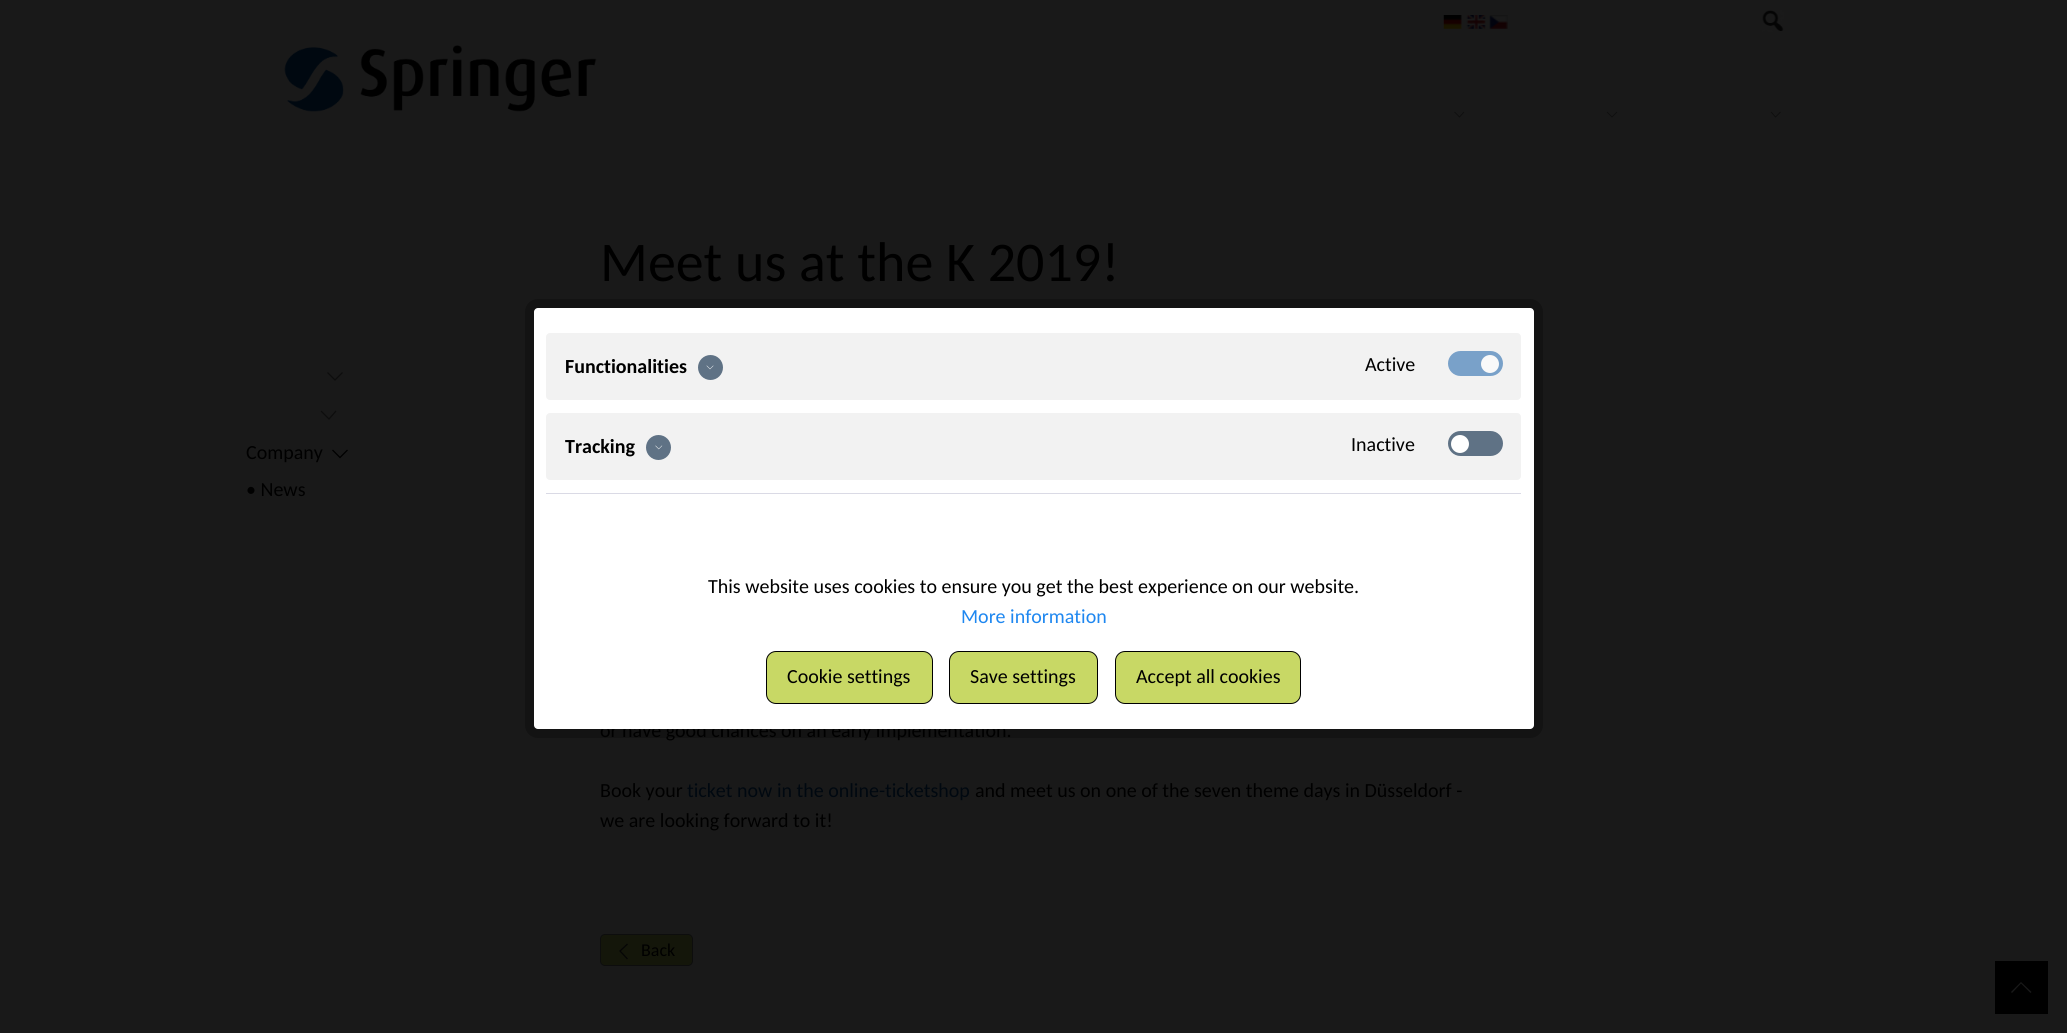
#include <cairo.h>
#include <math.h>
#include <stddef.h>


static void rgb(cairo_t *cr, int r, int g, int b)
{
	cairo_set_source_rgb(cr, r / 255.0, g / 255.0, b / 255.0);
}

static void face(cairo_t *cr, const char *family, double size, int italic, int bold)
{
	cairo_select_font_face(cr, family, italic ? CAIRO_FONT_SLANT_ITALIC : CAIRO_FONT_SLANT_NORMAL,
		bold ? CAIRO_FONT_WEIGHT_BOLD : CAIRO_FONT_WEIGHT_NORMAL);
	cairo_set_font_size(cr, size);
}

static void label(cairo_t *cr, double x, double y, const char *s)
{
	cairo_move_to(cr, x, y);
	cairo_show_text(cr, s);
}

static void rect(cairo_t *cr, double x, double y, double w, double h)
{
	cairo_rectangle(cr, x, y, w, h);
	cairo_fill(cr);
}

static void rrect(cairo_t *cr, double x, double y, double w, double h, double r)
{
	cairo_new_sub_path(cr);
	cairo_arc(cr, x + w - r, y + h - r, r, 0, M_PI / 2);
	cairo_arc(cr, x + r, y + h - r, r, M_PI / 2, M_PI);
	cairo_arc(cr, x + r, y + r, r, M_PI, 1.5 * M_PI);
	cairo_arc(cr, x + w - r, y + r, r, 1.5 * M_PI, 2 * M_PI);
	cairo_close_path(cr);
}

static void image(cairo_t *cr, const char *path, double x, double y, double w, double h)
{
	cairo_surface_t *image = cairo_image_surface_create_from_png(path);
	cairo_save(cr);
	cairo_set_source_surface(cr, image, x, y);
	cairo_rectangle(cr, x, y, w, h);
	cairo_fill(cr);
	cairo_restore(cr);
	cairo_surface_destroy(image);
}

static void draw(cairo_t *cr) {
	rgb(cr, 25, 25, 25);
	cairo_paint(cr);
	image(cr, "image0.png", 1443, 15, 19, 14);
	image(cr, "image1.png", 1466, 15, 20, 14);
	image(cr, "image2.png", 1489, 15, 19, 14);
	image(cr, "image3.png", 1762, 10, 22, 22);
	image(cr, "image4.png", 284, 45, 313, 67);
	cairo_new_path(cr);
	cairo_move_to(cr, 1464, 112);
	cairo_line_to(cr, 1459.5, 117);
	cairo_line_to(cr, 1454.5, 112);
	rgb(cr, 13, 13, 13);
	cairo_set_line_width(cr, 0.8);
	cairo_stroke(cr);
	cairo_new_path(cr);
	cairo_move_to(cr, 1617, 112);
	cairo_line_to(cr, 1612, 117);
	cairo_line_to(cr, 1607, 112);
	cairo_stroke(cr);
	cairo_new_path(cr);
	cairo_move_to(cr, 1780.5, 112);
	cairo_line_to(cr, 1775.5, 117);
	cairo_line_to(cr, 1771, 112);
	cairo_stroke(cr);
	cairo_new_path(cr);
	cairo_move_to(cr, 342.5, 372.5);
	cairo_line_to(cr, 335, 380);
	cairo_line_to(cr, 327.5, 372.5);
	cairo_move_to(cr, 336, 411);
	cairo_line_to(cr, 329, 419);
	cairo_line_to(cr, 321, 411);
	cairo_set_line_width(cr, 1.3);
	cairo_stroke(cr);
	face(cr, "Carlito", 20, 0, 0);
	rgb(cr, 0, 0, 0);
	label(cr, 246, 459, "Company");
	cairo_new_path(cr);
	cairo_move_to(cr, 347.5, 450);
	cairo_line_to(cr, 340, 457.5);
	cairo_line_to(cr, 332.5, 450);
	cairo_stroke(cr);
	label(cr, 246, 496, "• News");
	face(cr, "Carlito", 56, 0, 0);
	label(cr, 600, 281, "Meet us at the K 2019!");
	face(cr, "Carlito", 20, 0, 0);
	label(cr, 600, 737, "or have good chances on an early implementation.");
	label(cr, 600, 797, "Book your");
	rgb(cr, 0, 8, 16);
	label(cr, 687, 797, "ticket now in the online-ticketshop");
	rgb(cr, 0, 0, 0);
	label(cr, 975, 797, "and meet us on one of the seven theme days in Düsseldorf -");
	label(cr, 600, 827, "we are looking forward to it!");
	rgb(cr, 20, 22, 10);
	rrect(cr, 600.5, 934.5, 92, 31, 4.5);
	cairo_fill_preserve(cr);
	rgb(cr, 13, 13, 13);
	cairo_set_line_width(cr, 1);
	cairo_stroke(cr);
	cairo_new_path(cr);
	cairo_move_to(cr, 627.5, 959);
	cairo_line_to(cr, 620, 951);
	cairo_line_to(cr, 627.5, 944);
	rgb(cr, 5, 5, 5);
	cairo_set_line_width(cr, 1.3);
	cairo_stroke(cr);
	face(cr, "Carlito", 18, 0, 0);
	rgb(cr, 0, 0, 0);
	label(cr, 641, 956, "Back");
	rect(cr, 1995, 961, 53, 53);
	rgb(cr, 25, 25, 25);
	cairo_new_path(cr);
	cairo_move_to(cr, 2031.5, 992);
	cairo_line_to(cr, 2030.5, 993);
	cairo_line_to(cr, 2021, 983.5);
	cairo_line_to(cr, 2012, 993);
	cairo_line_to(cr, 2011, 992);
	cairo_line_to(cr, 2021, 982);
	cairo_close_path(cr);
	cairo_fill(cr);
	rrect(cr, 529.5, 303.5, 1009, 430, 8.5);
	cairo_set_source_rgba(cr, 0, 0, 0, 0.25);
	cairo_set_line_width(cr, 9);
	cairo_stroke(cr);
	rgb(cr, 255, 255, 255);
	rrect(cr, 534, 308, 1000, 421, 4);
	cairo_fill(cr);
	rgb(cr, 218, 218, 229);
	rect(cr, 546, 493, 975, 1);
	rgb(cr, 242, 242, 242);
	rrect(cr, 546, 333, 975, 67, 4);
	cairo_fill(cr);
	face(cr, "Carlito", 20, 0, 1);
	rgb(cr, 0, 0, 0);
	label(cr, 565, 373, "Functionalities");
	rgb(cr, 95, 114, 133);
	cairo_new_path(cr);
	cairo_arc(cr, 710.5, 367.5, 12.5, 0, 2 * M_PI);
	cairo_fill(cr);
	image(cr, "image5.png", 706, 365, 8, 5);
	face(cr, "Carlito", 20, 0, 0);
	rgb(cr, 0, 0, 0);
	label(cr, 1365, 371, "Active");
	rgb(cr, 121, 161, 201);
	rrect(cr, 1448, 351, 55, 25, 12.5);
	cairo_fill(cr);
	rgb(cr, 249, 249, 249);
	cairo_arc(cr, 1490, 364, 9, 0, 2 * M_PI);
	cairo_fill(cr);
	rgb(cr, 242, 242, 242);
	rrect(cr, 546, 413, 975, 67, 4);
	cairo_fill(cr);
	face(cr, "Carlito", 20, 0, 1);
	rgb(cr, 0, 0, 0);
	label(cr, 565, 453, "Tracking");
	rgb(cr, 95, 114, 133);
	cairo_new_path(cr);
	cairo_arc(cr, 658.5, 447.5, 12.5, 0, 2 * M_PI);
	cairo_fill(cr);
	image(cr, "image6.png", 655, 445, 8, 5);
	face(cr, "Carlito", 20, 0, 0);
	rgb(cr, 0, 0, 0);
	label(cr, 1351, 451, "Inactive");
	rgb(cr, 95, 114, 133);
	rrect(cr, 1448, 431, 55, 25, 12.5);
	cairo_fill(cr);
	rgb(cr, 255, 255, 255);
	cairo_arc(cr, 1460, 444, 9, 0, 2 * M_PI);
	cairo_fill(cr);
	rgb(cr, 0, 0, 0);
	label(cr, 708, 593, "This website uses cookies to ensure you get the best experience on our website.");
	rgb(cr, 30, 135, 240);
	label(cr, 961, 623, "More information");
	rgb(cr, 200, 216, 101);
	rrect(cr, 766.5, 651.5, 166, 52, 9.5);
	cairo_fill_preserve(cr);
	rgb(cr, 0, 0, 0);
	cairo_set_line_width(cr, 1);
	cairo_stroke(cr);
	label(cr, 787, 683, "Cookie settings");
	rgb(cr, 200, 216, 101);
	rrect(cr, 949.5, 651.5, 148, 52, 9.5);
	cairo_fill_preserve(cr);
	rgb(cr, 0, 0, 0);
	cairo_stroke(cr);
	label(cr, 970, 683, "Save settings");
	rgb(cr, 200, 216, 101);
	rrect(cr, 1115.5, 651.5, 185, 52, 9.5);
	cairo_fill_preserve(cr);
	rgb(cr, 0, 0, 0);
	cairo_stroke(cr);
	label(cr, 1136, 683, "Accept all cookies");
}

int main(void) {
	cairo_surface_t *surface = cairo_image_surface_create(CAIRO_FORMAT_RGB24, 2067, 1033);
	cairo_t *cr = cairo_create(surface);
	cairo_font_options_t *options = cairo_font_options_create();
	cairo_font_options_set_hint_metrics(options, CAIRO_HINT_METRICS_OFF);
	cairo_font_options_set_hint_style(options, CAIRO_HINT_STYLE_NONE);
	cairo_set_font_options(cr, options);
	cairo_set_miter_limit(cr, 4);
	draw(cr);
	cairo_surface_write_to_png(surface, "render.png");
	cairo_font_options_destroy(options);
	cairo_destroy(cr);
	cairo_surface_destroy(surface);
	return 0;
}
